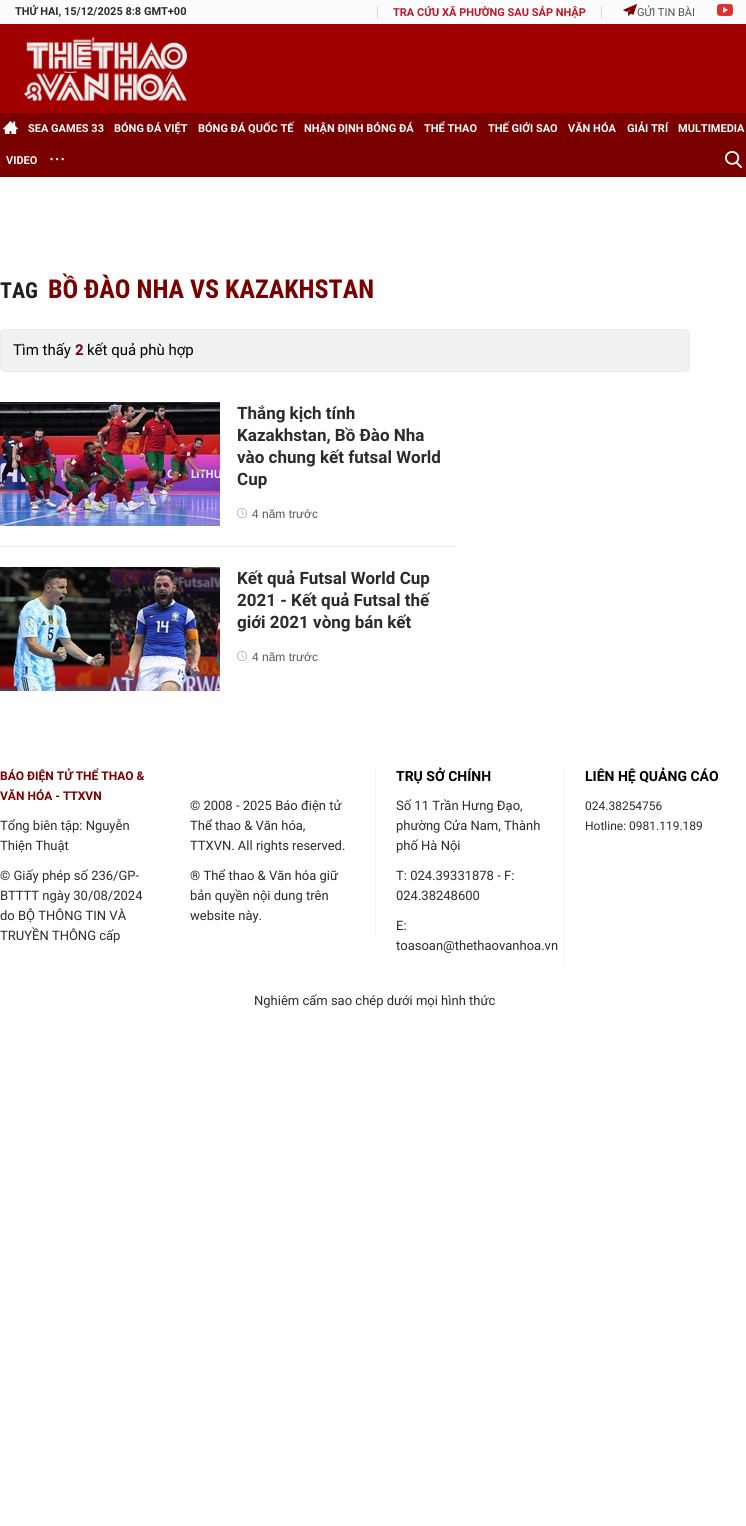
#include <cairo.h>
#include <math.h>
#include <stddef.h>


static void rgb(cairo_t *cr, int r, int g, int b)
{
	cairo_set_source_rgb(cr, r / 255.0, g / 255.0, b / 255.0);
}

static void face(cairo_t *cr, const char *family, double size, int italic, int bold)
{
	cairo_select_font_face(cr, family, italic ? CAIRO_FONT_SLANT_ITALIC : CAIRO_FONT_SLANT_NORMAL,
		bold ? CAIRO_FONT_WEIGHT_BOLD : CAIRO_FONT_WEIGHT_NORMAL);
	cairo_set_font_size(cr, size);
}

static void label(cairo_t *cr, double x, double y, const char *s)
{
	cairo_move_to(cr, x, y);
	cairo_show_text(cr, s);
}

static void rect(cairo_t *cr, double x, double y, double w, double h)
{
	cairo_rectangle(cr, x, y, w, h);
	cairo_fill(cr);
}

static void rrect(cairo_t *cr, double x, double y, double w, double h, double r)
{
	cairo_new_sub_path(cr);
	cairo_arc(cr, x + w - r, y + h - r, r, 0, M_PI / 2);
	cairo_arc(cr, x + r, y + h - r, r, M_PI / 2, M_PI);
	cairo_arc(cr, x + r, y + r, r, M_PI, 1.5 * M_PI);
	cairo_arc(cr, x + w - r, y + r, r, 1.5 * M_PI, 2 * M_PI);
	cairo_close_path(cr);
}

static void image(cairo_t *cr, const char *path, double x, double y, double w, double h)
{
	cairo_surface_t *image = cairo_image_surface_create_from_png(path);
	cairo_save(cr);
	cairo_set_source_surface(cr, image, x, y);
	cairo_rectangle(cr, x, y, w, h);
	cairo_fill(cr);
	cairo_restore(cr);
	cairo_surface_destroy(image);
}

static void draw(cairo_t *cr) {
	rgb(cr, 255, 255, 255);
	cairo_paint(cr);
	rgb(cr, 252, 252, 252);
	rect(cr, 0, 0, 746, 24);
	face(cr, "Roboto", 11, 0, 1);
	rgb(cr, 43, 43, 43);
	label(cr, 15, 15, "THỨ HAI, 15/12/2025 8:8 GMT+00");
	rgb(cr, 216, 216, 216);
	rect(cr, 601, 6, 1, 13);
	rect(cr, 377, 6, 1, 13);
	rgb(cr, 189, 23, 40);
	label(cr, 393, 16, "TRA CỨU XÃ PHƯỜNG SAU SÁP NHẬP");
	image(cr, "image0.png", 623, 4, 14, 12);
	face(cr, "Roboto", 11, 0, 0);
	rgb(cr, 82, 82, 82);
	label(cr, 637, 16, "GỬI TIN BÀI");
	image(cr, "image1.png", 717, 4, 16, 12);
	rgb(cr, 161, 0, 0);
	rect(cr, 0, 24, 746, 89);
	image(cr, "image2.png", 24, 37, 163, 64);
	rgb(cr, 122, 0, 0);
	rect(cr, 0, 113, 746, 64);
	image(cr, "image3.png", 3, 121, 15, 13);
	face(cr, "Roboto", 11, 0, 1);
	rgb(cr, 255, 255, 255);
	label(cr, 28, 132, "SEA GAMES 33");
	label(cr, 114, 132, "BÓNG ĐÁ VIỆT");
	label(cr, 198, 132, "BÓNG ĐÁ QUỐC TẾ");
	label(cr, 304, 132, "NHẬN ĐỊNH BÓNG ĐÁ");
	label(cr, 424, 132, "THỂ THAO");
	label(cr, 488, 132, "THẾ GIỚI SAO");
	label(cr, 568, 132, "VĂN HÓA");
	label(cr, 627, 132, "GIẢI TRÍ");
	label(cr, 678, 132, "MULTIMEDIA");
	label(cr, 6, 164, "VIDEO");
	image(cr, "image4.png", 50, 157, 14, 4);
	image(cr, "image5.png", 725, 151, 17, 17);
	face(cr, "Roboto Condensed", 22, 0, 1);
	rgb(cr, 31, 31, 31);
	label(cr, 0, 298, "TAG");
	face(cr, "Roboto Condensed", 26, 0, 1);
	rgb(cr, 122, 0, 0);
	label(cr, 48, 298, "BỒ ĐÀO NHA VS KAZAKHSTAN");
	rgb(cr, 241, 241, 241);
	rrect(cr, 0.5, 329.5, 689, 42, 4.5);
	cairo_fill_preserve(cr);
	rgb(cr, 235, 235, 235);
	cairo_set_line_width(cr, 1);
	cairo_stroke(cr);
	face(cr, "Roboto", 15, 0, 0);
	rgb(cr, 0, 0, 0);
	label(cr, 13, 355, "Tìm thấy");
	face(cr, "Roboto", 15, 0, 1);
	rgb(cr, 122, 0, 0);
	label(cr, 75, 355, "2");
	face(cr, "Roboto", 15, 0, 0);
	rgb(cr, 0, 0, 0);
	label(cr, 87, 355, "kết quả phù hợp");
	rgb(cr, 235, 235, 235);
	rect(cr, 0, 546, 455, 1);
	image(cr, "image6.png", 0, 402, 220, 124);
	face(cr, "Roboto", 17, 0, 1);
	rgb(cr, 43, 43, 43);
	label(cr, 237, 419, "Thắng kịch tính");
	label(cr, 237, 441, "Kazakhstan, Bồ Đào Nha");
	label(cr, 237, 463, "vào chung kết futsal World");
	label(cr, 237, 485, "Cup");
	image(cr, "image7.png", 237, 508, 10, 10);
	face(cr, "Liberation Sans", 12, 0, 0);
	rgb(cr, 78, 87, 101);
	label(cr, 252, 518, "4 năm trước");
	image(cr, "image8.png", 0, 567, 220, 124);
	face(cr, "Roboto", 17, 0, 1);
	rgb(cr, 43, 43, 43);
	label(cr, 237, 584, "Kết quả Futsal World Cup");
	label(cr, 237, 606, "2021 - Kết quả Futsal thế");
	label(cr, 237, 628, "giới 2021 vòng bán kết");
	image(cr, "image7.png", 237, 651, 10, 10);
	face(cr, "Liberation Sans", 12, 0, 0);
	rgb(cr, 78, 87, 101);
	label(cr, 252, 661, "4 năm trước");
	face(cr, "Roboto", 12, 0, 1);
	rgb(cr, 122, 0, 0);
	label(cr, 0, 780, "BÁO ĐIỆN TỬ THỂ THAO &");
	label(cr, 0, 800, "VĂN HÓA - TTXVN");
	face(cr, "Roboto", 13, 0, 0);
	rgb(cr, 43, 43, 43);
	label(cr, 0, 830, "Tổng biên tập: Nguyễn");
	label(cr, 0, 850, "Thiện Thuật");
	label(cr, 0, 880, "© Giấy phép số 236/GP-");
	label(cr, 0, 900, "BTTTT ngày 30/08/2024");
	label(cr, 0, 920, "do BỘ THÔNG TIN VÀ");
	label(cr, 0, 940, "TRUYỀN THÔNG cấp");
	cairo_new_path(cr);
	cairo_move_to(cr, 375.5, 766);
	cairo_line_to(cr, 375.5, 936);
	rgb(cr, 235, 235, 235);
	cairo_set_dash(cr, (double[]){1, 1}, 2, 0);
	cairo_stroke(cr);
	rgb(cr, 43, 43, 43);
	label(cr, 190, 810, "© 2008 - 2025 Báo điện tử");
	label(cr, 190, 830, "Thể thao & Văn hóa,");
	label(cr, 190, 850, "TTXVN. All rights reserved.");
	label(cr, 190, 880, "® Thể thao & Văn hóa giữ");
	label(cr, 190, 900, "bản quyền nội dung trên");
	label(cr, 190, 920, "website này.");
	cairo_new_path(cr);
	cairo_move_to(cr, 564.5, 766);
	cairo_line_to(cr, 564.5, 966);
	rgb(cr, 235, 235, 235);
	cairo_stroke(cr);
	face(cr, "Roboto", 14, 0, 1);
	rgb(cr, 0, 0, 0);
	label(cr, 396, 781, "TRỤ SỞ CHÍNH");
	face(cr, "Roboto", 13, 0, 0);
	rgb(cr, 43, 43, 43);
	label(cr, 396, 810, "Số 11 Trần Hưng Đạo,");
	label(cr, 396, 830, "phường Cửa Nam, Thành");
	label(cr, 396, 850, "phố Hà Nội");
	label(cr, 396, 880, "T: 024.39331878 - F:");
	label(cr, 396, 900, "024.38248600");
	label(cr, 396, 930, "E:");
	label(cr, 396, 950, "toasoan@thethaovanhoa.vn");
	face(cr, "Roboto", 14, 0, 1);
	rgb(cr, 0, 0, 0);
	label(cr, 585, 781, "LIÊN HỆ QUẢNG CÁO");
	face(cr, "Roboto", 12, 0, 0);
	rgb(cr, 43, 43, 43);
	label(cr, 585, 810, "024.38254756");
	label(cr, 585, 830, "Hotline: 0981.119.189");
	face(cr, "Roboto", 13, 0, 0);
	label(cr, 254, 1005, "Nghiêm cấm sao chép dưới mọi hình thức");
}

int main(void) {
	cairo_surface_t *surface = cairo_image_surface_create(CAIRO_FORMAT_RGB24, 746, 1526);
	cairo_t *cr = cairo_create(surface);
	cairo_font_options_t *options = cairo_font_options_create();
	cairo_font_options_set_hint_metrics(options, CAIRO_HINT_METRICS_OFF);
	cairo_font_options_set_hint_style(options, CAIRO_HINT_STYLE_NONE);
	cairo_set_font_options(cr, options);
	cairo_set_miter_limit(cr, 4);
	draw(cr);
	cairo_surface_write_to_png(surface, "render.png");
	cairo_font_options_destroy(options);
	cairo_destroy(cr);
	cairo_surface_destroy(surface);
	return 0;
}
